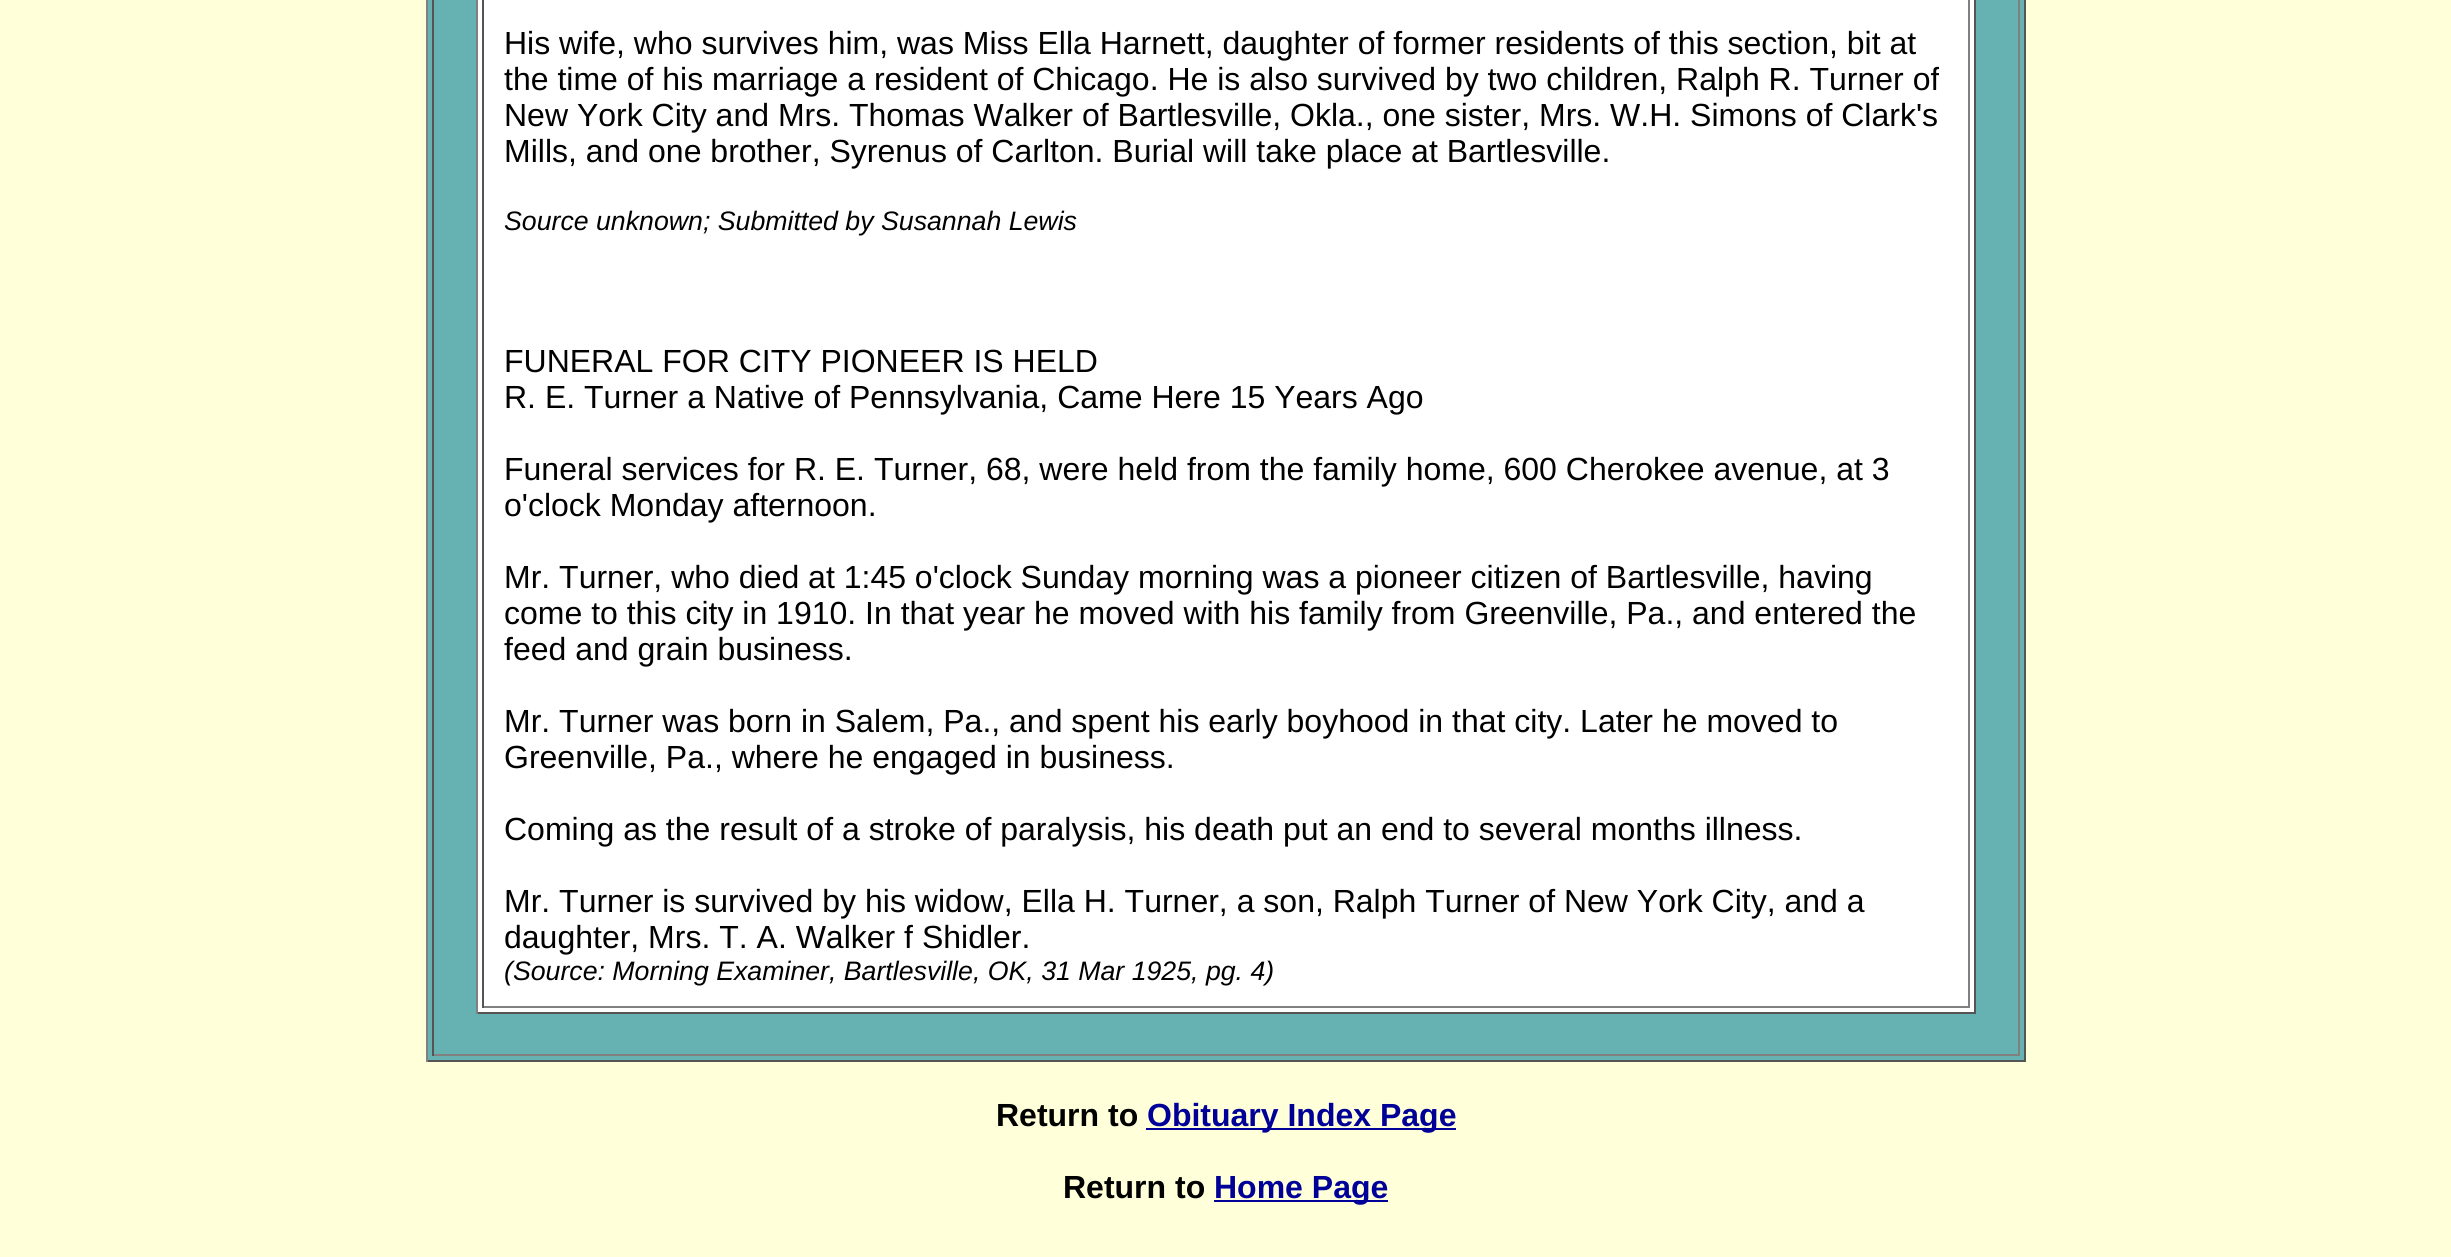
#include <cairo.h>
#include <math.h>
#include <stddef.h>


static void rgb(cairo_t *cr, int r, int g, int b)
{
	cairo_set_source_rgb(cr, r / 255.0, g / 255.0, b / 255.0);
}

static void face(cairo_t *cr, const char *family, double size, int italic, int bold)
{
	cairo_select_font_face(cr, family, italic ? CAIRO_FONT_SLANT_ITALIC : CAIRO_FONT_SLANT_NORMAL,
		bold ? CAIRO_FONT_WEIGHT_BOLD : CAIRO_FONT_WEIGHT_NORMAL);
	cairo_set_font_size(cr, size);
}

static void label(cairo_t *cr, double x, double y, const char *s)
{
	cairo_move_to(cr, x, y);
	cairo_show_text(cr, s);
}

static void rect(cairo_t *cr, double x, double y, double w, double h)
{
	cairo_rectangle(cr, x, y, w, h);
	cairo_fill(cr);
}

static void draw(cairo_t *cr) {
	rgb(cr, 255, 255, 217);
	cairo_paint(cr);
	rgb(cr, 102, 178, 178);
	rect(cr, 428, 0, 1596, 1060);
	rgb(cr, 85, 85, 85);
	rect(cr, 2024, 0, 2, 1062);
	rect(cr, 426, 1060, 1600, 2);
	rgb(cr, 128, 128, 128);
	rect(cr, 426, 0, 2, 1062);
	rect(cr, 2018, 0, 2, 1056);
	rect(cr, 432, 1054, 1588, 2);
	rgb(cr, 85, 85, 85);
	rect(cr, 432, 0, 2, 1056);
	rgb(cr, 255, 255, 255);
	rect(cr, 478, 0, 1496, 1012);
	rgb(cr, 85, 85, 85);
	rect(cr, 1974, 0, 2, 1014);
	rect(cr, 476, 1012, 1500, 2);
	rgb(cr, 128, 128, 128);
	rect(cr, 476, 0, 2, 1014);
	rect(cr, 1968, 0, 2, 1008);
	rect(cr, 482, 1006, 1488, 2);
	rgb(cr, 85, 85, 85);
	rect(cr, 482, 0, 2, 1008);
	face(cr, "Liberation Sans", 32, 0, 0);
	rgb(cr, 0, 0, 0);
	label(cr, 504, 54, "His wife, who survives him, was Miss Ella Harnett, daughter of former residents of this section, bit at");
	label(cr, 504, 90, "the time of his marriage a resident of Chicago. He is also survived by two children, Ralph R. Turner of");
	label(cr, 504, 126, "New York City and Mrs. Thomas Walker of Bartlesville, Okla., one sister, Mrs. W.H. Simons of Clark's");
	label(cr, 504, 162, "Mills, and one brother, Syrenus of Carlton. Burial will take place at Bartlesville.");
	face(cr, "Liberation Sans", 26.7, 1, 0);
	label(cr, 504, 230, "Source unknown; Submitted by Susannah Lewis");
	face(cr, "Liberation Sans", 32, 0, 0);
	label(cr, 504, 372, "FUNERAL FOR CITY PIONEER IS HELD");
	label(cr, 504, 408, "R. E. Turner a Native of Pennsylvania, Came Here 15 Years Ago");
	label(cr, 504, 480, "Funeral services for R. E. Turner, 68, were held from the family home, 600 Cherokee avenue, at 3");
	label(cr, 504, 516, "o'clock Monday afternoon.");
	label(cr, 504, 588, "Mr. Turner, who died at 1:45 o'clock Sunday morning was a pioneer citizen of Bartlesville, having");
	label(cr, 504, 624, "come to this city in 1910. In that year he moved with his family from Greenville, Pa., and entered the");
	label(cr, 504, 660, "feed and grain business.");
	label(cr, 504, 732, "Mr. Turner was born in Salem, Pa., and spent his early boyhood in that city. Later he moved to");
	label(cr, 504, 768, "Greenville, Pa., where he engaged in business.");
	label(cr, 504, 840, "Coming as the result of a stroke of paralysis, his death put an end to several months illness.");
	label(cr, 504, 912, "Mr. Turner is survived by his widow, Ella H. Turner, a son, Ralph Turner of New York City, and a");
	label(cr, 504, 948, "daughter, Mrs. T. A. Walker f Shidler.");
	face(cr, "Liberation Sans", 26.7, 1, 0);
	label(cr, 504, 980, "(Source: Morning Examiner, Bartlesville, OK, 31 Mar 1925, pg. 4)");
	face(cr, "Liberation Sans", 32, 0, 1);
	label(cr, 996, 1126, "Return to");
	rgb(cr, 0, 0, 153);
	rect(cr, 1146, 1128, 310, 2);
	label(cr, 1147, 1126, "Obituary Index Page");
	rgb(cr, 0, 0, 0);
	label(cr, 1063, 1198, "Return to");
	rgb(cr, 0, 0, 153);
	rect(cr, 1214, 1200, 174, 2);
	label(cr, 1214, 1198, "Home Page");
}

int main(void) {
	cairo_surface_t *surface = cairo_image_surface_create(CAIRO_FORMAT_RGB24, 2451, 1257);
	cairo_t *cr = cairo_create(surface);
	cairo_font_options_t *options = cairo_font_options_create();
	cairo_font_options_set_hint_metrics(options, CAIRO_HINT_METRICS_OFF);
	cairo_font_options_set_hint_style(options, CAIRO_HINT_STYLE_NONE);
	cairo_set_font_options(cr, options);
	cairo_set_miter_limit(cr, 4);
	draw(cr);
	cairo_surface_write_to_png(surface, "render.png");
	cairo_font_options_destroy(options);
	cairo_destroy(cr);
	cairo_surface_destroy(surface);
	return 0;
}
